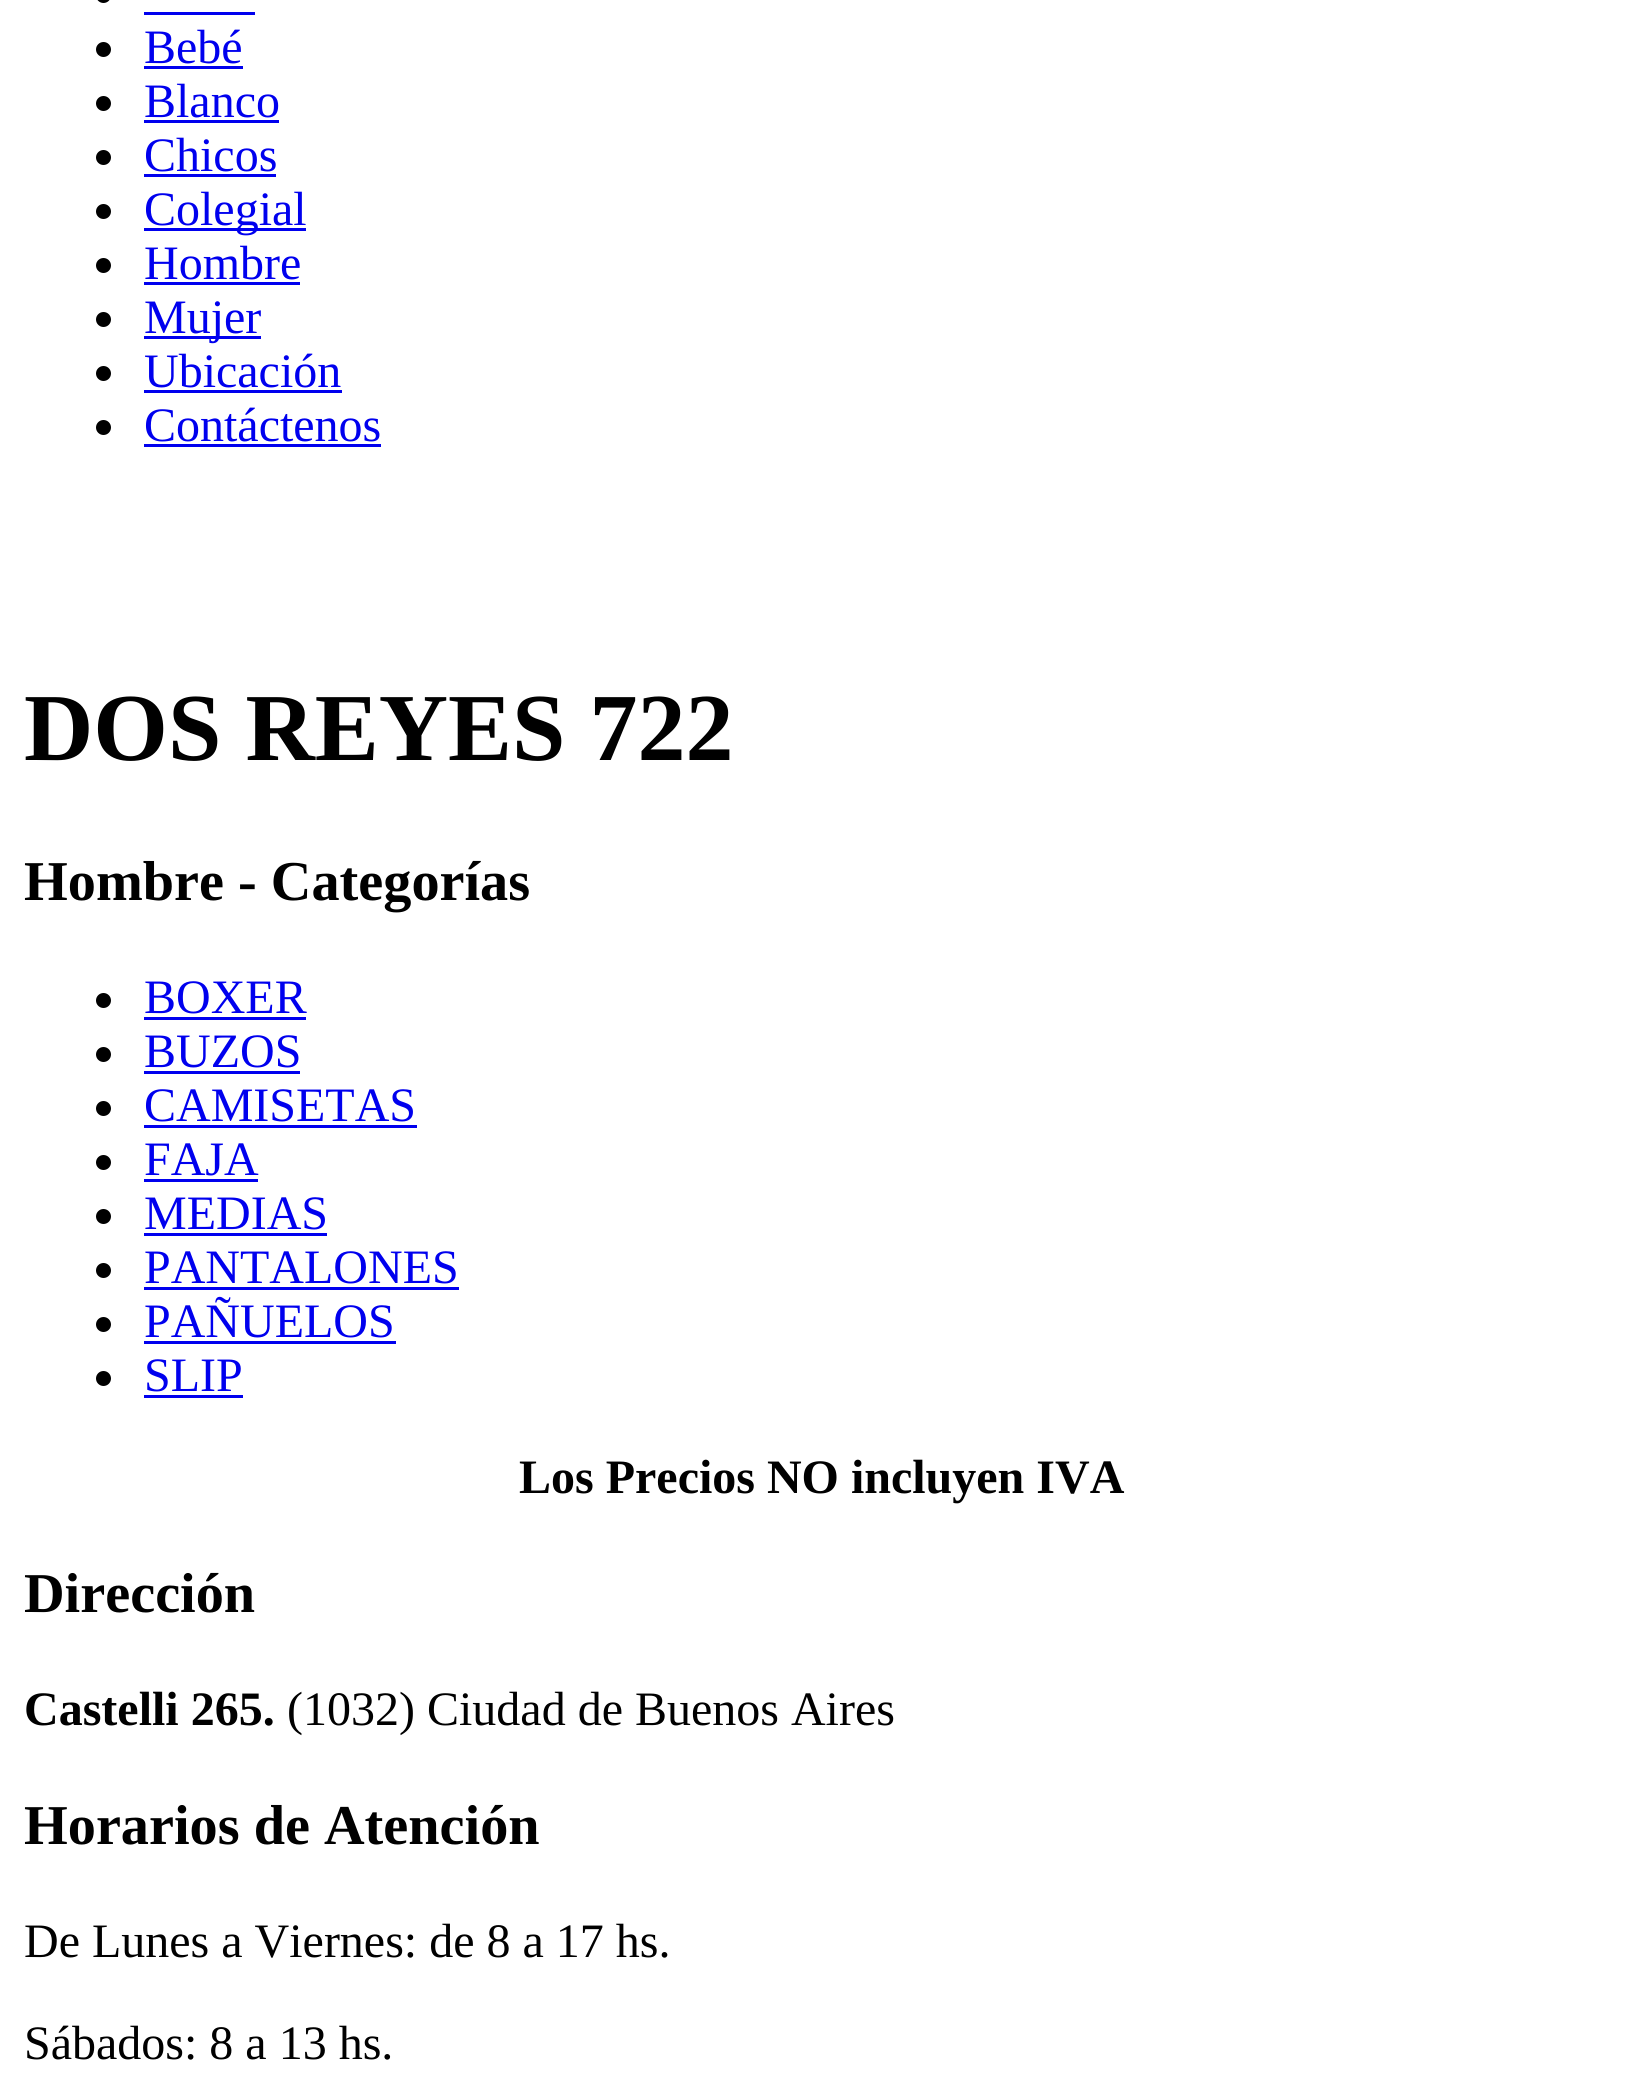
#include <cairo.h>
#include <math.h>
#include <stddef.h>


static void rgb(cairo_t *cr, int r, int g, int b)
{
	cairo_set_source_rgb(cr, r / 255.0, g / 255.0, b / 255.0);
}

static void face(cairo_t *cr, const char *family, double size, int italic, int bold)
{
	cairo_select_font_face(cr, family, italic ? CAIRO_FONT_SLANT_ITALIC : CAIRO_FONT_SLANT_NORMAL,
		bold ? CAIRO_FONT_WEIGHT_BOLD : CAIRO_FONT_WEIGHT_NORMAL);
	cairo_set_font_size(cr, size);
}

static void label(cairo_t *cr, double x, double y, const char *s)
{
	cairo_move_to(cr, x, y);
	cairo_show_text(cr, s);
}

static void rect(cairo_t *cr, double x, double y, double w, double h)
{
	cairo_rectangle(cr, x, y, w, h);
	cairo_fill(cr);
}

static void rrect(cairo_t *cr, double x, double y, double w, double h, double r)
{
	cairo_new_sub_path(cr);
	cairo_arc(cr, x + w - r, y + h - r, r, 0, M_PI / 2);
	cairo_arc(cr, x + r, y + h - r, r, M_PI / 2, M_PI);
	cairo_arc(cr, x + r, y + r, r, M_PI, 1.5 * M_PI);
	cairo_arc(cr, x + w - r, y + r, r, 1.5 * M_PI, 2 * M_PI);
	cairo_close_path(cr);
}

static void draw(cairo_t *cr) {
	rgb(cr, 255, 255, 255);
	cairo_paint(cr);
	rgb(cr, 0, 0, 0);
	rrect(cr, 96, -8, 15, 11, 7.5);
	cairo_fill(cr);
	rgb(cr, 0, 0, 238);
	rect(cr, 144, 12, 111, 3);
	rgb(cr, 0, 0, 0);
	cairo_arc(cr, 103.5, 49.5, 7.5, 0, 2 * M_PI);
	cairo_fill(cr);
	face(cr, "Liberation Serif", 48, 0, 0);
	rgb(cr, 0, 0, 238);
	label(cr, 144, 63, "Bebé");
	rect(cr, 144, 66, 99, 3);
	rgb(cr, 0, 0, 0);
	cairo_new_path(cr);
	cairo_arc(cr, 103.5, 103.5, 7.5, 0, 2 * M_PI);
	cairo_fill(cr);
	rgb(cr, 0, 0, 238);
	label(cr, 144, 117, "Blanco");
	rect(cr, 144, 120, 135, 3);
	rgb(cr, 0, 0, 0);
	cairo_new_path(cr);
	cairo_arc(cr, 103.5, 157.5, 7.5, 0, 2 * M_PI);
	cairo_fill(cr);
	rgb(cr, 0, 0, 238);
	label(cr, 144, 171, "Chicos");
	rect(cr, 144, 174, 132, 3);
	rgb(cr, 0, 0, 0);
	cairo_new_path(cr);
	cairo_arc(cr, 103.5, 211.5, 7.5, 0, 2 * M_PI);
	cairo_fill(cr);
	rgb(cr, 0, 0, 238);
	rect(cr, 144, 228, 162, 3);
	label(cr, 144, 225, "Colegial");
	rgb(cr, 0, 0, 0);
	cairo_new_path(cr);
	cairo_arc(cr, 103.5, 265.5, 7.5, 0, 2 * M_PI);
	cairo_fill(cr);
	rgb(cr, 0, 0, 238);
	label(cr, 144, 279, "Hombre");
	rect(cr, 144, 282, 156, 3);
	rgb(cr, 0, 0, 0);
	cairo_new_path(cr);
	cairo_arc(cr, 103.5, 319.5, 7.5, 0, 2 * M_PI);
	cairo_fill(cr);
	rgb(cr, 0, 0, 238);
	rect(cr, 144, 336, 117, 3);
	label(cr, 144, 333, "Mujer");
	rgb(cr, 0, 0, 0);
	cairo_new_path(cr);
	cairo_arc(cr, 103.5, 373.5, 7.5, 0, 2 * M_PI);
	cairo_fill(cr);
	rgb(cr, 0, 0, 238);
	label(cr, 144, 387, "Ubicación");
	rect(cr, 144, 390, 198, 3);
	rgb(cr, 0, 0, 0);
	cairo_new_path(cr);
	cairo_arc(cr, 103.5, 427.5, 7.5, 0, 2 * M_PI);
	cairo_fill(cr);
	rgb(cr, 0, 0, 238);
	label(cr, 144, 441, "Contáctenos");
	rect(cr, 144, 444, 237, 3);
	face(cr, "Liberation Serif", 96, 0, 1);
	rgb(cr, 0, 0, 0);
	label(cr, 24, 760, "DOS REYES 722");
	face(cr, "Liberation Serif", 56.25, 0, 1);
	label(cr, 24, 900, "Hombre - Categorías");
	cairo_new_path(cr);
	cairo_arc(cr, 103.5, 1000.5, 7.5, 0, 2 * M_PI);
	cairo_fill(cr);
	face(cr, "Liberation Serif", 48, 0, 0);
	rgb(cr, 0, 0, 238);
	label(cr, 144, 1013, "BOXER");
	rect(cr, 144, 1017, 162, 3);
	rgb(cr, 0, 0, 0);
	cairo_new_path(cr);
	cairo_arc(cr, 103.5, 1054.5, 7.5, 0, 2 * M_PI);
	cairo_fill(cr);
	rgb(cr, 0, 0, 238);
	label(cr, 144, 1067, "BUZOS");
	rect(cr, 144, 1071, 156, 3);
	rgb(cr, 0, 0, 0);
	cairo_new_path(cr);
	cairo_arc(cr, 103.5, 1108.5, 7.5, 0, 2 * M_PI);
	cairo_fill(cr);
	rgb(cr, 0, 0, 238);
	label(cr, 144, 1121, "CAMISETAS");
	rect(cr, 144, 1125, 273, 3);
	rgb(cr, 0, 0, 0);
	cairo_new_path(cr);
	cairo_arc(cr, 103.5, 1162.5, 7.5, 0, 2 * M_PI);
	cairo_fill(cr);
	rgb(cr, 0, 0, 238);
	label(cr, 144, 1175, "FAJA");
	rect(cr, 144, 1179, 114, 3);
	rgb(cr, 0, 0, 0);
	cairo_new_path(cr);
	cairo_arc(cr, 103.5, 1216.5, 7.5, 0, 2 * M_PI);
	cairo_fill(cr);
	rgb(cr, 0, 0, 238);
	label(cr, 144, 1229, "MEDIAS");
	rect(cr, 144, 1233, 183, 3);
	rgb(cr, 0, 0, 0);
	cairo_new_path(cr);
	cairo_arc(cr, 103.5, 1270.5, 7.5, 0, 2 * M_PI);
	cairo_fill(cr);
	rgb(cr, 0, 0, 238);
	label(cr, 144, 1283, "PANTALONES");
	rect(cr, 144, 1287, 315, 3);
	rgb(cr, 0, 0, 0);
	cairo_new_path(cr);
	cairo_arc(cr, 103.5, 1324.5, 7.5, 0, 2 * M_PI);
	cairo_fill(cr);
	rgb(cr, 0, 0, 238);
	label(cr, 144, 1337, "PAÑUELOS");
	rect(cr, 144, 1341, 252, 3);
	rgb(cr, 0, 0, 0);
	cairo_new_path(cr);
	cairo_arc(cr, 103.5, 1378.5, 7.5, 0, 2 * M_PI);
	cairo_fill(cr);
	rgb(cr, 0, 0, 238);
	label(cr, 144, 1391, "SLIP");
	rect(cr, 144, 1395, 99, 3);
	face(cr, "Liberation Serif", 48, 0, 1);
	rgb(cr, 0, 0, 0);
	label(cr, 519, 1493, "Los Precios NO incluyen IVA");
	face(cr, "Liberation Serif", 56.25, 0, 1);
	label(cr, 24, 1612, "Dirección");
	face(cr, "Liberation Serif", 48, 0, 1);
	label(cr, 24, 1725, "Castelli 265.");
	face(cr, "Liberation Serif", 48, 0, 0);
	label(cr, 287, 1725, "(1032) Ciudad de Buenos Aires");
	face(cr, "Liberation Serif", 56.25, 0, 1);
	label(cr, 24, 1844, "Horarios de Atención");
	face(cr, "Liberation Serif", 48, 0, 0);
	label(cr, 24, 1957, "De Lunes a Viernes: de 8 a 17 hs.");
	label(cr, 24, 2059, "Sábados: 8 a 13 hs.");
}

int main(void) {
	cairo_surface_t *surface = cairo_image_surface_create(CAIRO_FORMAT_RGB24, 1644, 2079);
	cairo_t *cr = cairo_create(surface);
	cairo_font_options_t *options = cairo_font_options_create();
	cairo_font_options_set_hint_metrics(options, CAIRO_HINT_METRICS_OFF);
	cairo_font_options_set_hint_style(options, CAIRO_HINT_STYLE_NONE);
	cairo_set_font_options(cr, options);
	cairo_set_miter_limit(cr, 4);
	draw(cr);
	cairo_surface_write_to_png(surface, "render.png");
	cairo_font_options_destroy(options);
	cairo_destroy(cr);
	cairo_surface_destroy(surface);
	return 0;
}
